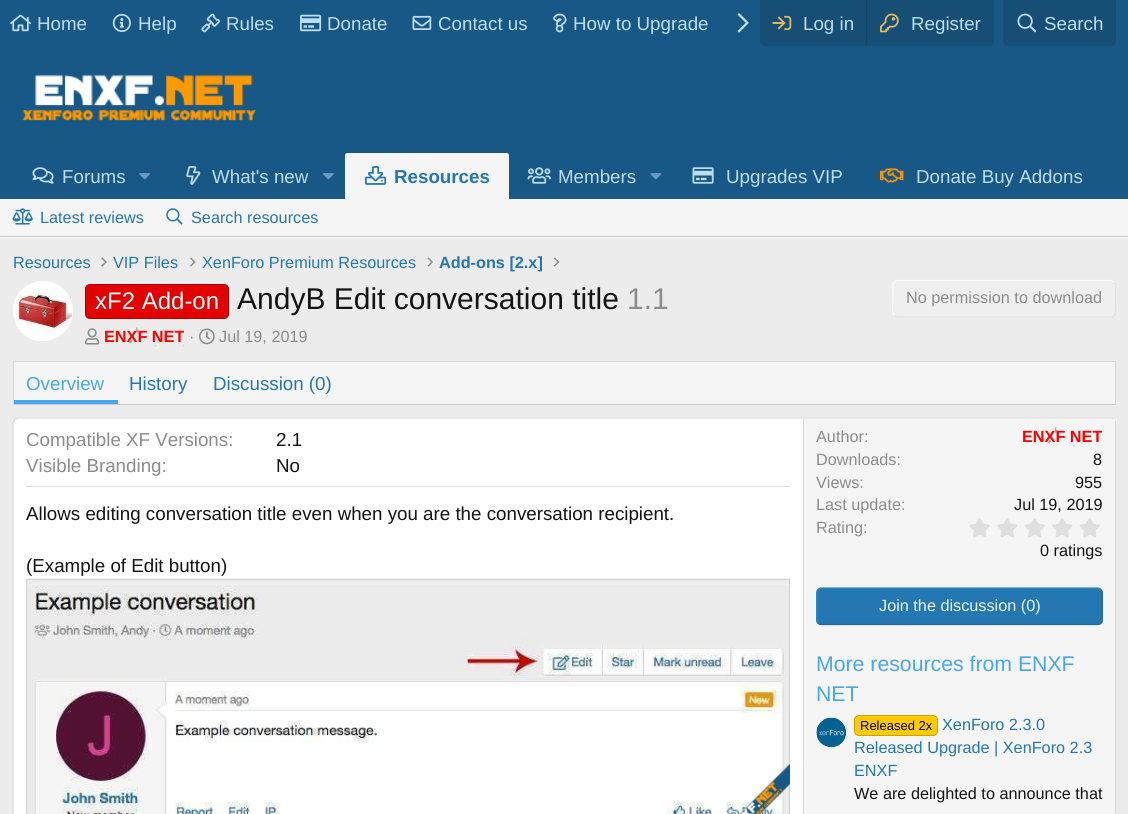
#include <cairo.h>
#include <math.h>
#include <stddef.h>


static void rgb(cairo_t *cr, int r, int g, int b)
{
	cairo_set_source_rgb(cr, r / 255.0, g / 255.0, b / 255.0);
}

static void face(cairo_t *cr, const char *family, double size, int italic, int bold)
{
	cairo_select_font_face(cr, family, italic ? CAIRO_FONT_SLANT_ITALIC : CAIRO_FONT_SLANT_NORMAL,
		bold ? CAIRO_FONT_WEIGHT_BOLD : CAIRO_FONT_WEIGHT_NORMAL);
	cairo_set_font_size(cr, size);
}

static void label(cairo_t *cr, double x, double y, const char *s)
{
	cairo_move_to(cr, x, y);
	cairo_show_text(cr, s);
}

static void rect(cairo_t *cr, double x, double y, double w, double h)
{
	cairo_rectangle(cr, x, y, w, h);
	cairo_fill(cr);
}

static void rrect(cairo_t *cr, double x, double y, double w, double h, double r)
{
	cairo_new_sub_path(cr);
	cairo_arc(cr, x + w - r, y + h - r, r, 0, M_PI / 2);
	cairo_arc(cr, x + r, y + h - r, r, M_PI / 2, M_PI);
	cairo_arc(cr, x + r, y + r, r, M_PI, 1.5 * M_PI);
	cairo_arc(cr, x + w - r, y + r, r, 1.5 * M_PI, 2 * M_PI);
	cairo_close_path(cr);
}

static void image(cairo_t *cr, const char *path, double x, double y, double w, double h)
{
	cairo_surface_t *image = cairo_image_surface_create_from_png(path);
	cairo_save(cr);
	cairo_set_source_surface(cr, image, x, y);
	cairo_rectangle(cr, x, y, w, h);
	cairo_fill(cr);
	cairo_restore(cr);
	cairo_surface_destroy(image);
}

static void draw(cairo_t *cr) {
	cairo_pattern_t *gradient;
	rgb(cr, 236, 236, 236);
	cairo_paint(cr);
	rgb(cr, 24, 88, 134);
	rect(cr, 0, 0, 1128, 199);
	image(cr, "image0.png", 22, 74, 235, 47);
	image(cr, "image1.png", 10, 14, 21, 18);
	face(cr, "Liberation Sans", 18.75, 0, 0);
	rgb(cr, 188, 222, 245);
	label(cr, 37, 30, "Home");
	image(cr, "image2.png", 112, 13, 19, 19);
	label(cr, 138, 30, "Help");
	image(cr, "image3.png", 201, 13, 19, 20);
	label(cr, 226, 30, "Rules");
	image(cr, "image4.png", 300, 14, 22, 18);
	label(cr, 327, 30, "Donate");
	image(cr, "image5.png", 412, 15, 20, 15);
	label(cr, 438, 30, "Contact us");
	image(cr, "image6.png", 553, 13, 14, 20);
	label(cr, 573, 30, "How to Upgrade");
	gradient = cairo_pattern_create_linear(706, 23, 756, 23);
	cairo_pattern_add_color_stop_rgba(gradient, 0, 0.094, 0.345, 0.525, 0);
	cairo_pattern_add_color_stop_rgba(gradient, 0.33, 0.094, 0.345, 0.525, 1);
	cairo_set_source(cr, gradient);
	cairo_pattern_destroy(gradient);
	rect(cr, 706, 22, 2, 7);
	image(cr, "image7.png", 737, 13, 12, 20);
	rgb(cr, 23, 78, 117);
	cairo_new_path(cr);
	cairo_move_to(cr, 760, 0);
	cairo_line_to(cr, 994, 0);
	cairo_line_to(cr, 994, 41);
	cairo_curve_to(cr, 994, 44, 992, 46, 989, 46);
	cairo_line_to(cr, 765, 46);
	cairo_curve_to(cr, 762, 46, 760, 44, 760, 41);
	cairo_close_path(cr);
	cairo_fill(cr);
	image(cr, "image8.png", 772, 15, 20, 15);
	rgb(cr, 188, 222, 245);
	label(cr, 803, 30, "Log in");
	rgb(cr, 23, 69, 102);
	rect(cr, 866, 0, 1, 46);
	image(cr, "image9.png", 880, 13, 19, 20);
	rgb(cr, 188, 222, 245);
	label(cr, 911, 30, "Register");
	rgb(cr, 23, 78, 117);
	cairo_new_path(cr);
	cairo_move_to(cr, 1003, 0);
	cairo_line_to(cr, 1116, 0);
	cairo_line_to(cr, 1116, 41);
	cairo_curve_to(cr, 1116, 44, 1114, 46, 1111, 46);
	cairo_line_to(cr, 1008, 46);
	cairo_curve_to(cr, 1005, 46, 1003, 44, 1003, 41);
	cairo_close_path(cr);
	cairo_fill(cr);
	image(cr, "image10.png", 1017, 13, 20, 20);
	rgb(cr, 188, 222, 245);
	label(cr, 1044, 30, "Search");
	image(cr, "image11.png", 32, 167, 22, 17);
	label(cr, 62, 183, "Forums");
	image(cr, "image12.png", 139, 173, 11, 7);
	image(cr, "image13.png", 186, 166, 15, 19);
	label(cr, 212, 183, "What's new");
	image(cr, "image14.png", 323, 173, 11, 7);
	rgb(cr, 245, 245, 245);
	cairo_new_path(cr);
	cairo_move_to(cr, 347.5, 153);
	cairo_line_to(cr, 506.5, 153);
	cairo_curve_to(cr, 508, 153, 509, 154, 509, 155.5);
	cairo_line_to(cr, 509, 199);
	cairo_line_to(cr, 345, 199);
	cairo_line_to(cr, 345, 155.5);
	cairo_curve_to(cr, 345, 154, 346, 153, 347.5, 153);
	cairo_close_path(cr);
	cairo_fill(cr);
	image(cr, "image15.png", 365, 166, 22, 19);
	face(cr, "Liberation Sans", 18.75, 0, 1);
	rgb(cr, 37, 119, 177);
	label(cr, 394, 183, "Resources");
	image(cr, "image16.png", 527, 167, 24, 17);
	face(cr, "Liberation Sans", 18.75, 0, 0);
	rgb(cr, 188, 222, 245);
	label(cr, 558, 183, "Members");
	image(cr, "image17.png", 650, 173, 12, 7);
	image(cr, "image18.png", 692, 167, 22, 17);
	label(cr, 726, 183, "Upgrades VIP");
	image(cr, "image19.png", 880, 168, 24, 15);
	label(cr, 916, 183, "Donate Buy Addons");
	rgb(cr, 245, 245, 245);
	rect(cr, 0, 199, 1128, 39);
	rgb(cr, 203, 203, 203);
	rect(cr, 0, 236, 1128, 1);
	image(cr, "image20.png", 12, 208, 21, 17);
	face(cr, "Liberation Sans", 16.25, 0, 0);
	rgb(cr, 37, 119, 177);
	label(cr, 40, 223, "Latest reviews");
	image(cr, "image21.png", 166, 208, 17, 17);
	label(cr, 191, 223, "Search resources");
	label(cr, 13, 268, "Resources");
	image(cr, "image22.png", 101, 257, 6, 10);
	label(cr, 113, 268, "VIP Files");
	image(cr, "image23.png", 190, 257, 6, 10);
	label(cr, 202, 268, "XenForo Premium Resources");
	image(cr, "image24.png", 427, 257, 6, 10);
	face(cr, "Liberation Sans", 16.25, 0, 1);
	label(cr, 439, 268, "Add-ons [2.x]");
	image(cr, "image25.png", 553, 257, 7, 10);
	rgb(cr, 254, 254, 254);
	cairo_arc(cr, 43, 311, 30, 0, 2 * M_PI);
	cairo_fill(cr);
	image(cr, "image26.png", 13, 290, 59, 51);
	rgb(cr, 226, 0, 0);
	rrect(cr, 85.5, 284.5, 143, 34, 4.5);
	cairo_fill_preserve(cr);
	rgb(cr, 175, 0, 0);
	cairo_set_line_width(cr, 1);
	cairo_stroke(cr);
	face(cr, "Liberation Sans", 24, 0, 0);
	rgb(cr, 255, 255, 255);
	label(cr, 95, 309, "xF2 Add-on");
	face(cr, "Liberation Sans", 30, 0, 0);
	rgb(cr, 20, 20, 20);
	label(cr, 237, 309, "AndyB Edit conversation title");
	rgb(cr, 140, 140, 140);
	label(cr, 627, 309, "1.1");
	rgb(cr, 239, 239, 239);
	rrect(cr, 893, 280, 223, 38, 5);
	cairo_fill(cr);
	cairo_new_path(cr);
	cairo_move_to(cr, 1114.5, 282);
	cairo_curve_to(cr, 1117, 284.5, 1115.5, 291, 1115.5, 294);
	cairo_line_to(cr, 1115.5, 303.5);
	cairo_curve_to(cr, 1115.5, 306.5, 1117.5, 317, 1111, 317);
	cairo_line_to(cr, 897.5, 317);
	cairo_line_to(cr, 894.5, 315.5);
	rgb(cr, 226, 226, 226);
	cairo_set_line_width(cr, 1.2);
	cairo_stroke(cr);
	cairo_new_path(cr);
	cairo_move_to(cr, 894.5, 315.5);
	cairo_curve_to(cr, 891.5, 313, 893, 306.5, 893, 303.5);
	cairo_line_to(cr, 893, 294);
	cairo_curve_to(cr, 893, 291, 891, 280.5, 897.5, 280.5);
	cairo_line_to(cr, 1111, 280.5);
	cairo_line_to(cr, 1114.5, 282);
	rgb(cr, 251, 251, 251);
	cairo_stroke(cr);
	face(cr, "Liberation Sans", 16.25, 0, 0);
	rgb(cr, 140, 140, 140);
	label(cr, 906, 303, "No permission to download");
	image(cr, "image27.png", 85, 328, 15, 17);
	image(cr, "image28.png", 128, 327, 56, 20);
	face(cr, "Liberation Sans", 16.25, 0, 1);
	rgb(cr, 255, 0, 0);
	label(cr, 104, 342, "ENXF NET");
	face(cr, "Liberation Sans", 16.25, 0, 0);
	rgb(cr, 140, 140, 140);
	label(cr, 189, 342, "·");
	image(cr, "image29.png", 199, 328, 16, 17);
	label(cr, 219, 342, "Jul 19, 2019");
	rgb(cr, 245, 245, 245);
	rect(cr, 14, 362, 1101, 42);
	rgb(cr, 223, 223, 223);
	rect(cr, 13, 361, 1103, 1);
	rgb(cr, 216, 216, 216);
	rect(cr, 1115, 361, 1, 44);
	rgb(cr, 203, 203, 203);
	rect(cr, 13, 404, 1103, 1);
	rgb(cr, 216, 216, 216);
	rect(cr, 13, 361, 1, 44);
	rgb(cr, 71, 167, 235);
	rect(cr, 14, 400, 104, 4);
	face(cr, "Liberation Sans", 18.75, 0, 0);
	label(cr, 26, 390, "Overview");
	rgb(cr, 37, 119, 177);
	label(cr, 129, 390, "History");
	label(cr, 213, 390, "Discussion (0)");
	rgb(cr, 254, 254, 254);
	rrect(cr, 13, 418, 1103, 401, 5);
	cairo_fill(cr);
	cairo_new_path(cr);
	cairo_move_to(cr, 14.5, 419.5);
	cairo_line_to(cr, 17.5, 418);
	cairo_line_to(cr, 1111, 418);
	cairo_line_to(cr, 1114.5, 419.5);
	rgb(cr, 223, 223, 223);
	cairo_stroke(cr);
	cairo_new_path(cr);
	cairo_move_to(cr, 1114.5, 419.5);
	cairo_line_to(cr, 1115.5, 422.5);
	cairo_line_to(cr, 1115.5, 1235);
	cairo_line_to(cr, 1114.5, 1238);
	rgb(cr, 216, 216, 216);
	cairo_stroke(cr);
	cairo_new_path(cr);
	cairo_move_to(cr, 14.5, 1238);
	cairo_line_to(cr, 13, 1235);
	cairo_line_to(cr, 13, 422.5);
	cairo_line_to(cr, 14.5, 419.5);
	cairo_stroke(cr);
	rgb(cr, 223, 223, 223);
	rect(cr, 26, 486, 764, 1);
	rgb(cr, 140, 140, 140);
	label(cr, 26, 446, "Compatible XF Versions:");
	rgb(cr, 20, 20, 20);
	label(cr, 276, 446, "2.1");
	rgb(cr, 140, 140, 140);
	label(cr, 26, 472, "Visible Branding:");
	rgb(cr, 20, 20, 20);
	label(cr, 276, 472, "No");
	label(cr, 26, 520, "Allows editing conversation title even when you are the conversation recipient.");
	label(cr, 26, 572, "(Example of Edit button)");
	image(cr, "image30.png", 26, 578, 764, 236);
	rgb(cr, 245, 245, 245);
	rect(cr, 804, 419, 311, 395);
	rgb(cr, 216, 216, 216);
	rect(cr, 803, 419, 1, 395);
	face(cr, "Liberation Sans", 16.25, 0, 0);
	rgb(cr, 140, 140, 140);
	label(cr, 816, 442, "Author:");
	image(cr, "image31.png", 1047, 427, 56, 20);
	face(cr, "Liberation Sans", 16.25, 0, 1);
	rgb(cr, 255, 0, 0);
	label(cr, 1022, 442, "ENXF NET");
	face(cr, "Liberation Sans", 16.25, 0, 0);
	rgb(cr, 140, 140, 140);
	label(cr, 816, 465, "Downloads:");
	rgb(cr, 20, 20, 20);
	label(cr, 1093, 465, "8");
	rgb(cr, 140, 140, 140);
	label(cr, 816, 488, "Views:");
	rgb(cr, 20, 20, 20);
	label(cr, 1075, 488, "955");
	rgb(cr, 140, 140, 140);
	label(cr, 816, 510, "Last update:");
	rgb(cr, 20, 20, 20);
	label(cr, 1014, 510, "Jul 19, 2019");
	rgb(cr, 140, 140, 140);
	label(cr, 816, 533, "Rating:");
	image(cr, "image32.png", 969, 518, 21, 20);
	image(cr, "image33.png", 997, 518, 21, 20);
	image(cr, "image32.png", 1024, 518, 21, 20);
	image(cr, "image33.png", 1052, 518, 21, 20);
	image(cr, "image32.png", 1079, 518, 21, 20);
	rgb(cr, 20, 20, 20);
	label(cr, 1040, 556, "0 ratings");
	rgb(cr, 37, 119, 177);
	rrect(cr, 816, 588, 287, 37, 5);
	cairo_fill(cr);
	cairo_new_path(cr);
	cairo_move_to(cr, 1100.5, 589.5);
	cairo_curve_to(cr, 1101.5, 590, 1102, 591.5, 1102, 592.5);
	cairo_line_to(cr, 1102, 620);
	cairo_curve_to(cr, 1102, 621, 1101.5, 622.5, 1100.5, 623);
	cairo_curve_to(cr, 1100, 624, 1098.5, 624.5, 1097.5, 624.5);
	cairo_line_to(cr, 821, 624.5);
	cairo_curve_to(cr, 820, 624.5, 819, 624, 818, 623);
	rgb(cr, 33, 105, 156);
	cairo_stroke(cr);
	cairo_new_path(cr);
	cairo_move_to(cr, 818, 623);
	cairo_curve_to(cr, 817.5, 622.5, 817, 621, 817, 620);
	cairo_line_to(cr, 817, 592.5);
	cairo_curve_to(cr, 817, 591.5, 817.5, 590, 818, 589.5);
	cairo_curve_to(cr, 819, 588.5, 820, 588, 821, 588);
	cairo_line_to(cr, 1097.5, 588);
	cairo_curve_to(cr, 1098.5, 588, 1100, 588.5, 1100.5, 589.5);
	rgb(cr, 41, 133, 198);
	cairo_stroke(cr);
	rgb(cr, 237, 246, 253);
	label(cr, 879, 611, "Join the discussion (0)");
	face(cr, "Liberation Sans", 21.25, 0, 0);
	rgb(cr, 71, 167, 235);
	label(cr, 816, 671, "More resources from ENXF");
	label(cr, 816, 701, "NET");
	rgb(cr, 254, 254, 254);
	cairo_new_path(cr);
	cairo_arc(cr, 831, 733, 15, 0, 2 * M_PI);
	cairo_fill(cr);
	image(cr, "image34.png", 816, 717, 30, 31);
	rgb(cr, 255, 203, 0);
	rrect(cr, 854.5, 715.5, 83, 20, 4.5);
	cairo_fill_preserve(cr);
	rgb(cr, 204, 162, 0);
	cairo_set_line_width(cr, 1);
	cairo_stroke(cr);
	face(cr, "Liberation Sans", 13, 0, 0);
	rgb(cr, 0, 0, 0);
	label(cr, 860, 730, "Released 2x");
	face(cr, "Liberation Sans", 16.25, 0, 0);
	rgb(cr, 37, 119, 177);
	label(cr, 942, 730, "XenForo 2.3.0");
	label(cr, 854, 753, "Released Upgrade | XenForo 2.3");
	label(cr, 854, 776, "ENXF");
	rgb(cr, 20, 20, 20);
	label(cr, 854, 799, "We are delighted to announce that");
}

int main(void) {
	cairo_surface_t *surface = cairo_image_surface_create(CAIRO_FORMAT_RGB24, 1128, 814);
	cairo_t *cr = cairo_create(surface);
	cairo_font_options_t *options = cairo_font_options_create();
	cairo_font_options_set_hint_metrics(options, CAIRO_HINT_METRICS_OFF);
	cairo_font_options_set_hint_style(options, CAIRO_HINT_STYLE_NONE);
	cairo_set_font_options(cr, options);
	cairo_set_miter_limit(cr, 4);
	draw(cr);
	cairo_surface_write_to_png(surface, "render.png");
	cairo_font_options_destroy(options);
	cairo_destroy(cr);
	cairo_surface_destroy(surface);
	return 0;
}
